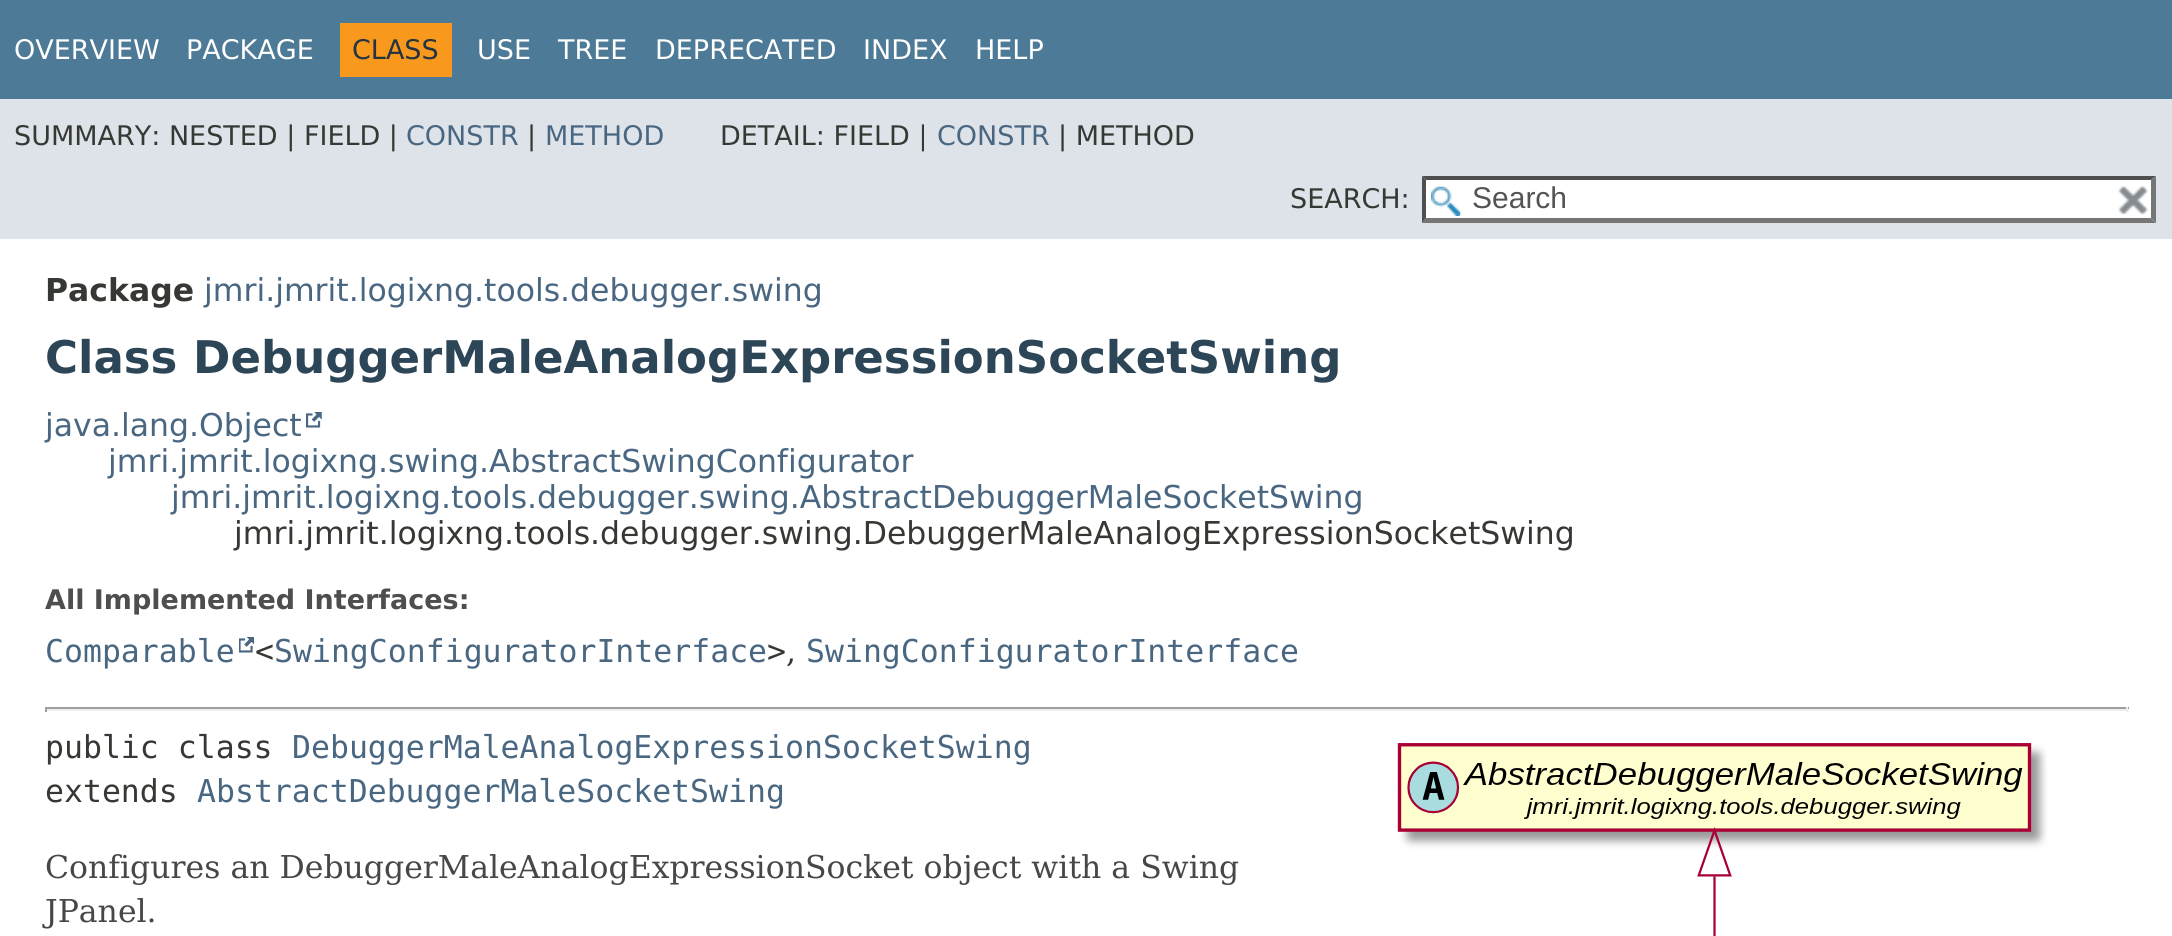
#include <cairo.h>
#include <math.h>
#include <stddef.h>


static void rgb(cairo_t *cr, int r, int g, int b)
{
	cairo_set_source_rgb(cr, r / 255.0, g / 255.0, b / 255.0);
}

static void face(cairo_t *cr, const char *family, double size, int italic, int bold)
{
	cairo_select_font_face(cr, family, italic ? CAIRO_FONT_SLANT_ITALIC : CAIRO_FONT_SLANT_NORMAL,
		bold ? CAIRO_FONT_WEIGHT_BOLD : CAIRO_FONT_WEIGHT_NORMAL);
	cairo_set_font_size(cr, size);
}

static void label(cairo_t *cr, double x, double y, const char *s)
{
	cairo_move_to(cr, x, y);
	cairo_show_text(cr, s);
}

static void rect(cairo_t *cr, double x, double y, double w, double h)
{
	cairo_rectangle(cr, x, y, w, h);
	cairo_fill(cr);
}

static void image(cairo_t *cr, const char *path, double x, double y, double w, double h)
{
	cairo_surface_t *image = cairo_image_surface_create_from_png(path);
	cairo_save(cr);
	cairo_set_source_surface(cr, image, x, y);
	cairo_rectangle(cr, x, y, w, h);
	cairo_fill(cr);
	cairo_restore(cr);
	cairo_surface_destroy(image);
}

static void draw(cairo_t *cr) {
	rgb(cr, 255, 255, 255);
	cairo_paint(cr);
	rgb(cr, 77, 122, 151);
	rect(cr, 0, 0, 2172, 99);
	face(cr, "DejaVu Sans", 27, 0, 0);
	rgb(cr, 255, 255, 255);
	label(cr, 14, 59, "OVERVIEW");
	label(cr, 186, 59, "PACKAGE");
	rgb(cr, 248, 152, 29);
	rect(cr, 340, 23, 112, 54);
	rgb(cr, 37, 52, 65);
	label(cr, 352, 59, "CLASS");
	rgb(cr, 255, 255, 255);
	label(cr, 477, 59, "USE");
	label(cr, 558, 59, "TREE");
	label(cr, 655, 59, "DEPRECATED");
	label(cr, 863, 59, "INDEX");
	label(cr, 975, 59, "HELP");
	rgb(cr, 222, 227, 233);
	rect(cr, 0, 99, 2172, 140);
	rgb(cr, 53, 56, 51);
	label(cr, 14, 145, "SUMMARY: NESTED | FIELD |");
	rgb(cr, 74, 103, 130);
	label(cr, 406, 145, "CONSTR");
	rgb(cr, 53, 56, 51);
	label(cr, 527, 145, "|");
	rgb(cr, 74, 103, 130);
	label(cr, 545, 145, "METHOD");
	rgb(cr, 53, 56, 51);
	label(cr, 720, 145, "DETAIL: FIELD |");
	rgb(cr, 74, 103, 130);
	label(cr, 937, 145, "CONSTR");
	rgb(cr, 53, 56, 51);
	label(cr, 1058, 145, "| METHOD");
	label(cr, 1290, 208, "SEARCH:");
	rgb(cr, 255, 255, 255);
	rect(cr, 1422, 176, 734, 47);
	image(cr, "image0.png", 1431, 186, 30, 30);
	rgb(cr, 79, 79, 79);
	cairo_new_path(cr);
	cairo_move_to(cr, 1422, 176);
	cairo_line_to(cr, 2156, 176);
	cairo_line_to(cr, 2151, 180);
	cairo_line_to(cr, 1426, 180);
	cairo_close_path(cr);
	cairo_fill(cr);
	rgb(cr, 118, 118, 118);
	cairo_new_path(cr);
	cairo_move_to(cr, 2156, 176);
	cairo_line_to(cr, 2156, 223);
	cairo_line_to(cr, 2151, 218);
	cairo_line_to(cr, 2151, 180);
	cairo_close_path(cr);
	cairo_fill(cr);
	cairo_new_path(cr);
	cairo_move_to(cr, 2156, 223);
	cairo_line_to(cr, 1422, 223);
	cairo_line_to(cr, 1426, 218);
	cairo_line_to(cr, 2151, 218);
	cairo_close_path(cr);
	cairo_fill(cr);
	rgb(cr, 79, 79, 79);
	cairo_new_path(cr);
	cairo_move_to(cr, 1422, 223);
	cairo_line_to(cr, 1422, 176);
	cairo_line_to(cr, 1426, 180);
	cairo_line_to(cr, 1426, 218);
	cairo_close_path(cr);
	cairo_fill(cr);
	face(cr, "Liberation Sans", 30, 0, 0);
	rgb(cr, 84, 84, 84);
	label(cr, 1472, 208, "Search");
	image(cr, "image1.png", 2118, 186, 30, 29);
	face(cr, "DejaVu Sans", 31.5, 0, 1);
	rgb(cr, 53, 56, 51);
	label(cr, 45, 301, "Package");
	face(cr, "DejaVu Sans", 31.5, 0, 0);
	rgb(cr, 74, 103, 130);
	label(cr, 204, 301, "jmri.jmrit.logixng.tools.debugger.swing");
	face(cr, "DejaVu Sans", 45, 0, 1);
	rgb(cr, 44, 69, 87);
	label(cr, 45, 373, "Class DebuggerMaleAnalogExpressionSocketSwing");
	face(cr, "DejaVu Sans", 31.5, 0, 0);
	rgb(cr, 74, 103, 130);
	label(cr, 45, 436, "java.lang.Object");
	image(cr, "image2.png", 306, 412, 16, 16);
	label(cr, 108, 472, "jmri.jmrit.logixng.swing.AbstractSwingConfigurator");
	label(cr, 171, 508, "jmri.jmrit.logixng.tools.debugger.swing.AbstractDebuggerMaleSocketSwing");
	rgb(cr, 53, 56, 51);
	label(cr, 234, 544, "jmri.jmrit.logixng.tools.debugger.swing.DebuggerMaleAnalogExpressionSocketSwing");
	face(cr, "DejaVu Sans", 27, 0, 1);
	rgb(cr, 78, 78, 78);
	label(cr, 45, 609, "All Implemented Interfaces:");
	face(cr, "DejaVu Sans Mono", 31.5, 0, 0);
	rgb(cr, 74, 103, 130);
	label(cr, 45, 662, "Comparable");
	image(cr, "image3.png", 239, 637, 15, 16);
	rgb(cr, 53, 56, 51);
	label(cr, 255, 662, "<");
	rgb(cr, 74, 103, 130);
	label(cr, 274, 662, "SwingConfiguratorInterface");
	rgb(cr, 53, 56, 51);
	label(cr, 767, 662, ">");
	face(cr, "DejaVu Serif", 31.5, 0, 0);
	label(cr, 786, 662, ",");
	face(cr, "DejaVu Sans Mono", 31.5, 0, 0);
	rgb(cr, 74, 103, 130);
	label(cr, 806, 662, "SwingConfiguratorInterface");
	rgb(cr, 159, 159, 159);
	rect(cr, 45, 707, 2084, 2);
	rgb(cr, 238, 238, 238);
	rect(cr, 2126, 707, 2, 5);
	rect(cr, 45, 709, 2084, 2);
	rgb(cr, 159, 159, 159);
	rect(cr, 45, 707, 2, 5);
	rgb(cr, 53, 56, 51);
	label(cr, 45, 758, "public class");
	rgb(cr, 74, 103, 130);
	label(cr, 292, 758, "DebuggerMaleAnalogExpressionSocketSwing");
	rgb(cr, 53, 56, 51);
	label(cr, 45, 802, "extends");
	rgb(cr, 74, 103, 130);
	label(cr, 197, 802, "AbstractDebuggerMaleSocketSwing");
	image(cr, "image4.png", 1397, 743, 650, 193);
	face(cr, "DejaVu Serif", 31.5, 0, 0);
	rgb(cr, 71, 71, 71);
	label(cr, 45, 878, "Configures an DebuggerMaleAnalogExpressionSocket object with a Swing");
	label(cr, 45, 922, "JPanel.");
}

int main(void) {
	cairo_surface_t *surface = cairo_image_surface_create(CAIRO_FORMAT_RGB24, 2172, 936);
	cairo_t *cr = cairo_create(surface);
	cairo_font_options_t *options = cairo_font_options_create();
	cairo_font_options_set_hint_metrics(options, CAIRO_HINT_METRICS_OFF);
	cairo_font_options_set_hint_style(options, CAIRO_HINT_STYLE_NONE);
	cairo_set_font_options(cr, options);
	cairo_set_miter_limit(cr, 4);
	draw(cr);
	cairo_surface_write_to_png(surface, "render.png");
	cairo_font_options_destroy(options);
	cairo_destroy(cr);
	cairo_surface_destroy(surface);
	return 0;
}
